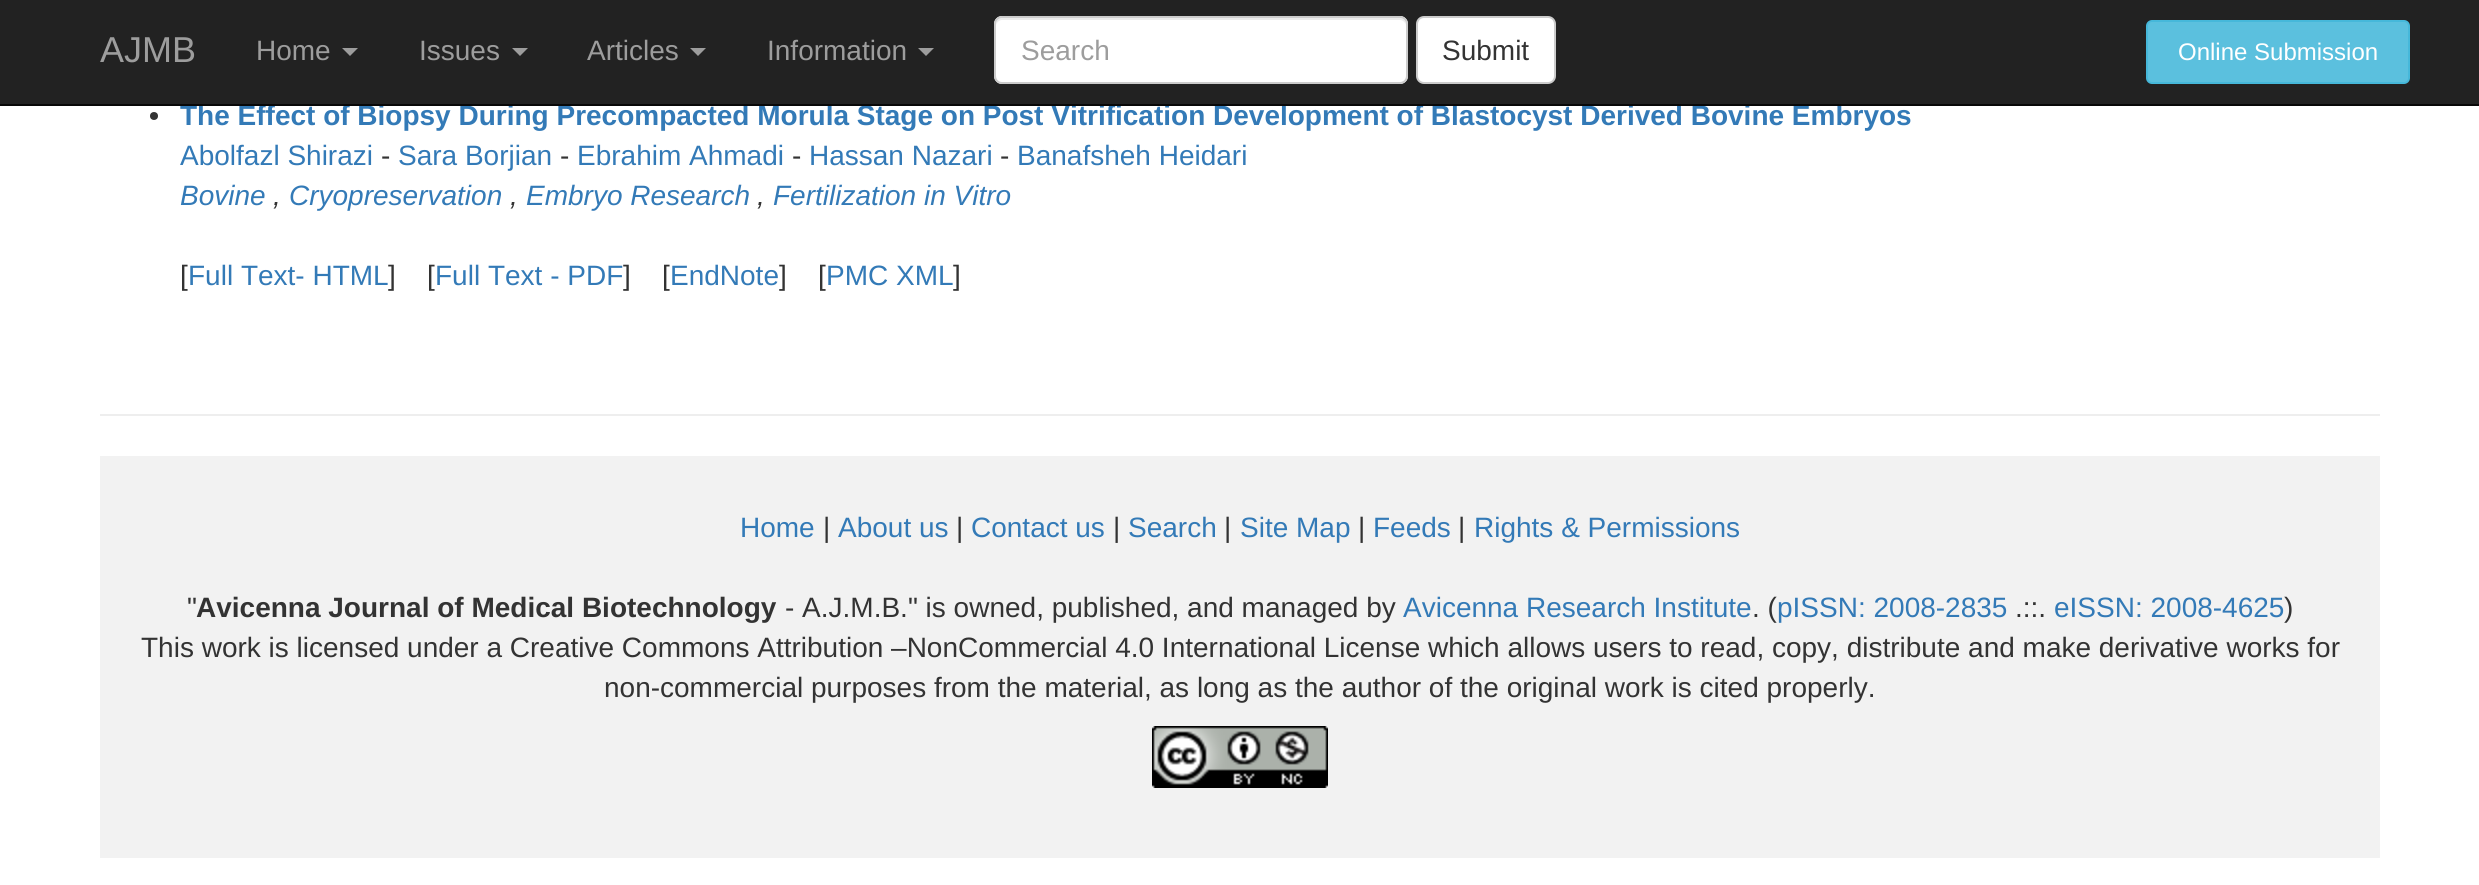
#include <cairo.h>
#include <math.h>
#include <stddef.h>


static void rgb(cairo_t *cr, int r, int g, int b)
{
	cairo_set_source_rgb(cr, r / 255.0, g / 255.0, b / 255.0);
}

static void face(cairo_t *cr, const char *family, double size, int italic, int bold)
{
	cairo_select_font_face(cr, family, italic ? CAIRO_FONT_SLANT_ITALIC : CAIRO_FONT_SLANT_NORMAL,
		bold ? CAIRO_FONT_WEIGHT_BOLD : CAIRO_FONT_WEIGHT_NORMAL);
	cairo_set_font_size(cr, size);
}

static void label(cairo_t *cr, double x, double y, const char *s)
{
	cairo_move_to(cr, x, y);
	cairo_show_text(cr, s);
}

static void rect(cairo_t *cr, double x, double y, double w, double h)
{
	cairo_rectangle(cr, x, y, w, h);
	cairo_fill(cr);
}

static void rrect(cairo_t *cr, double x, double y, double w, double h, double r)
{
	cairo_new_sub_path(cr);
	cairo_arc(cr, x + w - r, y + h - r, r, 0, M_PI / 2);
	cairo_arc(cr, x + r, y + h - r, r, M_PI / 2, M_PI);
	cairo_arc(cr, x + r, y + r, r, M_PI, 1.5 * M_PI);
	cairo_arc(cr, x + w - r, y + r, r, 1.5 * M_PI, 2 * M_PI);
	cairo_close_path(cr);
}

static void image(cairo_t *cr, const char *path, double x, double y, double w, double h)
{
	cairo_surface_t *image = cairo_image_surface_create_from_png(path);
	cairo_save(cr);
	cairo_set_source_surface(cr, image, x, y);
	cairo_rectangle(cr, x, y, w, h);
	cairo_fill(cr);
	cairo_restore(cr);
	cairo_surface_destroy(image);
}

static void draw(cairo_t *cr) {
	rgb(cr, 255, 255, 255);
	cairo_paint(cr);
	rgb(cr, 34, 34, 34);
	rect(cr, 0, 0, 2479, 104);
	face(cr, "Liberation Sans", 28, 0, 1);
	rgb(cr, 51, 122, 183);
	label(cr, 180, 125, "The Effect of Biopsy During Precompacted Morula Stage on Post Vitrification Development of Blastocyst Derived Bovine Embryos");
	rgb(cr, 8, 8, 8);
	rect(cr, 0, 104, 2479, 2);
	face(cr, "Liberation Sans", 36, 0, 0);
	rgb(cr, 157, 157, 157);
	label(cr, 100, 62, "AJMB");
	face(cr, "Liberation Sans", 28, 0, 0);
	label(cr, 256, 60, "Home");
	cairo_new_path(cr);
	cairo_move_to(cr, 342, 48);
	cairo_line_to(cr, 358, 48);
	cairo_line_to(cr, 350, 56);
	cairo_close_path(cr);
	cairo_fill(cr);
	label(cr, 419, 60, "Issues");
	cairo_new_path(cr);
	cairo_move_to(cr, 512, 48);
	cairo_line_to(cr, 528, 48);
	cairo_line_to(cr, 520, 56);
	cairo_close_path(cr);
	cairo_fill(cr);
	label(cr, 587, 60, "Articles");
	cairo_new_path(cr);
	cairo_move_to(cr, 690, 48);
	cairo_line_to(cr, 706, 48);
	cairo_line_to(cr, 698, 56);
	cairo_close_path(cr);
	cairo_fill(cr);
	label(cr, 767, 60, "Information");
	cairo_new_path(cr);
	cairo_move_to(cr, 918, 48);
	cairo_line_to(cr, 934, 48);
	cairo_line_to(cr, 926, 56);
	cairo_close_path(cr);
	cairo_fill(cr);
	rgb(cr, 255, 255, 255);
	rrect(cr, 994, 16, 414, 68, 8);
	cairo_fill(cr);
	rgb(cr, 236, 236, 236);
	cairo_new_path(cr);
	cairo_move_to(cr, 1002, 20);
	cairo_line_to(cr, 1400, 20);
	cairo_curve_to(cr, 1403, 20, 1406, 23, 1406, 26);
	cairo_curve_to(cr, 1406, 22, 1405, 18, 1400, 18);
	cairo_line_to(cr, 1002, 18);
	cairo_curve_to(cr, 997, 18, 996, 22, 996, 26);
	cairo_curve_to(cr, 996, 23, 999, 20, 1002, 20);
	cairo_close_path(cr);
	cairo_fill(cr);
	rrect(cr, 995, 17, 412, 66, 7);
	rgb(cr, 204, 204, 204);
	cairo_stroke(cr);
	rgb(cr, 157, 157, 157);
	label(cr, 1021, 60, "Search");
	rgb(cr, 255, 255, 255);
	rrect(cr, 1417, 17, 138, 66, 7);
	cairo_fill_preserve(cr);
	rgb(cr, 204, 204, 204);
	cairo_stroke(cr);
	rgb(cr, 51, 51, 51);
	label(cr, 1442, 60, "Submit");
	rgb(cr, 91, 192, 222);
	rrect(cr, 2147, 21, 262, 62, 5);
	cairo_fill_preserve(cr);
	rgb(cr, 70, 184, 218);
	cairo_stroke(cr);
	face(cr, "Liberation Sans", 24, 0, 0);
	rgb(cr, 255, 255, 255);
	label(cr, 2178, 60, "Online Submission");
	rgb(cr, 51, 51, 51);
	cairo_new_path(cr);
	cairo_arc(cr, 154, 116, 4, 0, 2 * M_PI);
	cairo_fill(cr);
	face(cr, "Liberation Sans", 28, 0, 0);
	rgb(cr, 51, 122, 183);
	label(cr, 180, 165, "Abolfazl Shirazi");
	rgb(cr, 51, 51, 51);
	label(cr, 381, 165, "-");
	rgb(cr, 51, 122, 183);
	label(cr, 398, 165, "Sara Borjian");
	rgb(cr, 51, 51, 51);
	label(cr, 560, 165, "-");
	rgb(cr, 51, 122, 183);
	label(cr, 577, 165, "Ebrahim Ahmadi");
	rgb(cr, 51, 51, 51);
	label(cr, 792, 165, "-");
	rgb(cr, 51, 122, 183);
	label(cr, 809, 165, "Hassan Nazari");
	rgb(cr, 51, 51, 51);
	label(cr, 1000, 165, "-");
	rgb(cr, 51, 122, 183);
	label(cr, 1017, 165, "Banafsheh Heidari");
	face(cr, "Liberation Sans", 28, 1, 0);
	label(cr, 180, 205, "Bovine");
	rgb(cr, 51, 51, 51);
	label(cr, 273, 205, ",");
	rgb(cr, 51, 122, 183);
	label(cr, 289, 205, "Cryopreservation");
	rgb(cr, 51, 51, 51);
	label(cr, 510, 205, ",");
	rgb(cr, 51, 122, 183);
	label(cr, 526, 205, "Embryo Research");
	rgb(cr, 51, 51, 51);
	label(cr, 757, 205, ",");
	rgb(cr, 51, 122, 183);
	label(cr, 773, 205, "Fertilization in Vitro");
	face(cr, "Liberation Sans", 28, 0, 0);
	rgb(cr, 51, 51, 51);
	label(cr, 180, 285, "[");
	rgb(cr, 51, 122, 183);
	label(cr, 188, 285, "Full Text- HTML");
	rgb(cr, 51, 51, 51);
	label(cr, 388, 285, "]");
	label(cr, 427, 285, "[");
	rgb(cr, 51, 122, 183);
	label(cr, 435, 285, "Full Text - PDF");
	rgb(cr, 51, 51, 51);
	label(cr, 623, 285, "]    [");
	rgb(cr, 51, 122, 183);
	label(cr, 670, 285, "EndNote");
	rgb(cr, 51, 51, 51);
	label(cr, 779, 285, "]    [");
	rgb(cr, 51, 122, 183);
	label(cr, 826, 285, "PMC XML");
	rgb(cr, 51, 51, 51);
	label(cr, 953, 285, "]");
	rgb(cr, 238, 238, 238);
	rect(cr, 100, 414, 2280, 2);
	rgb(cr, 242, 242, 242);
	rect(cr, 100, 456, 2280, 402);
	rgb(cr, 51, 122, 183);
	label(cr, 740, 537, "Home");
	rgb(cr, 51, 51, 51);
	label(cr, 823, 537, "|");
	rgb(cr, 51, 122, 183);
	label(cr, 838, 537, "About us");
	rgb(cr, 51, 51, 51);
	label(cr, 956, 537, "|");
	rgb(cr, 51, 122, 183);
	label(cr, 971, 537, "Contact us");
	rgb(cr, 51, 51, 51);
	label(cr, 1113, 537, "|");
	rgb(cr, 51, 122, 183);
	label(cr, 1128, 537, "Search");
	rgb(cr, 51, 51, 51);
	label(cr, 1224, 537, "|");
	rgb(cr, 51, 122, 183);
	label(cr, 1240, 537, "Site Map");
	rgb(cr, 51, 51, 51);
	label(cr, 1358, 537, "|");
	rgb(cr, 51, 122, 183);
	label(cr, 1373, 537, "Feeds");
	rgb(cr, 51, 51, 51);
	label(cr, 1458, 537, "|");
	rgb(cr, 51, 122, 183);
	label(cr, 1474, 537, "Rights & Permissions");
	rgb(cr, 51, 51, 51);
	label(cr, 187, 617, "\"");
	face(cr, "Liberation Sans", 28, 0, 1);
	label(cr, 196, 617, "Avicenna Journal of Medical Biotechnology");
	face(cr, "Liberation Sans", 28, 0, 0);
	label(cr, 785, 617, "- A.J.M.B.\" is owned, published, and managed by");
	rgb(cr, 51, 122, 183);
	label(cr, 1403, 617, "Avicenna Research Institute");
	rgb(cr, 51, 51, 51);
	label(cr, 1752, 617, ". (");
	rgb(cr, 51, 122, 183);
	label(cr, 1777, 617, "pISSN: 2008-2835");
	rgb(cr, 51, 51, 51);
	label(cr, 2015, 617, ".::.");
	rgb(cr, 51, 122, 183);
	label(cr, 2054, 617, "eISSN: 2008-4625");
	rgb(cr, 51, 51, 51);
	label(cr, 2284, 617, ")");
	label(cr, 141, 657, "This work is licensed under a Creative Commons Attribution –NonCommercial 4.0 International License which allows users to read, copy, distribute and make derivative works for");
	label(cr, 604, 697, "non-commercial purposes from the material, as long as the author of the original work is cited properly.");
	image(cr, "image0.png", 1152, 726, 176, 62);
}

int main(void) {
	cairo_surface_t *surface = cairo_image_surface_create(CAIRO_FORMAT_RGB24, 2479, 885);
	cairo_t *cr = cairo_create(surface);
	cairo_font_options_t *options = cairo_font_options_create();
	cairo_font_options_set_hint_metrics(options, CAIRO_HINT_METRICS_OFF);
	cairo_font_options_set_hint_style(options, CAIRO_HINT_STYLE_NONE);
	cairo_set_font_options(cr, options);
	cairo_set_miter_limit(cr, 4);
	draw(cr);
	cairo_surface_write_to_png(surface, "render.png");
	cairo_font_options_destroy(options);
	cairo_destroy(cr);
	cairo_surface_destroy(surface);
	return 0;
}
